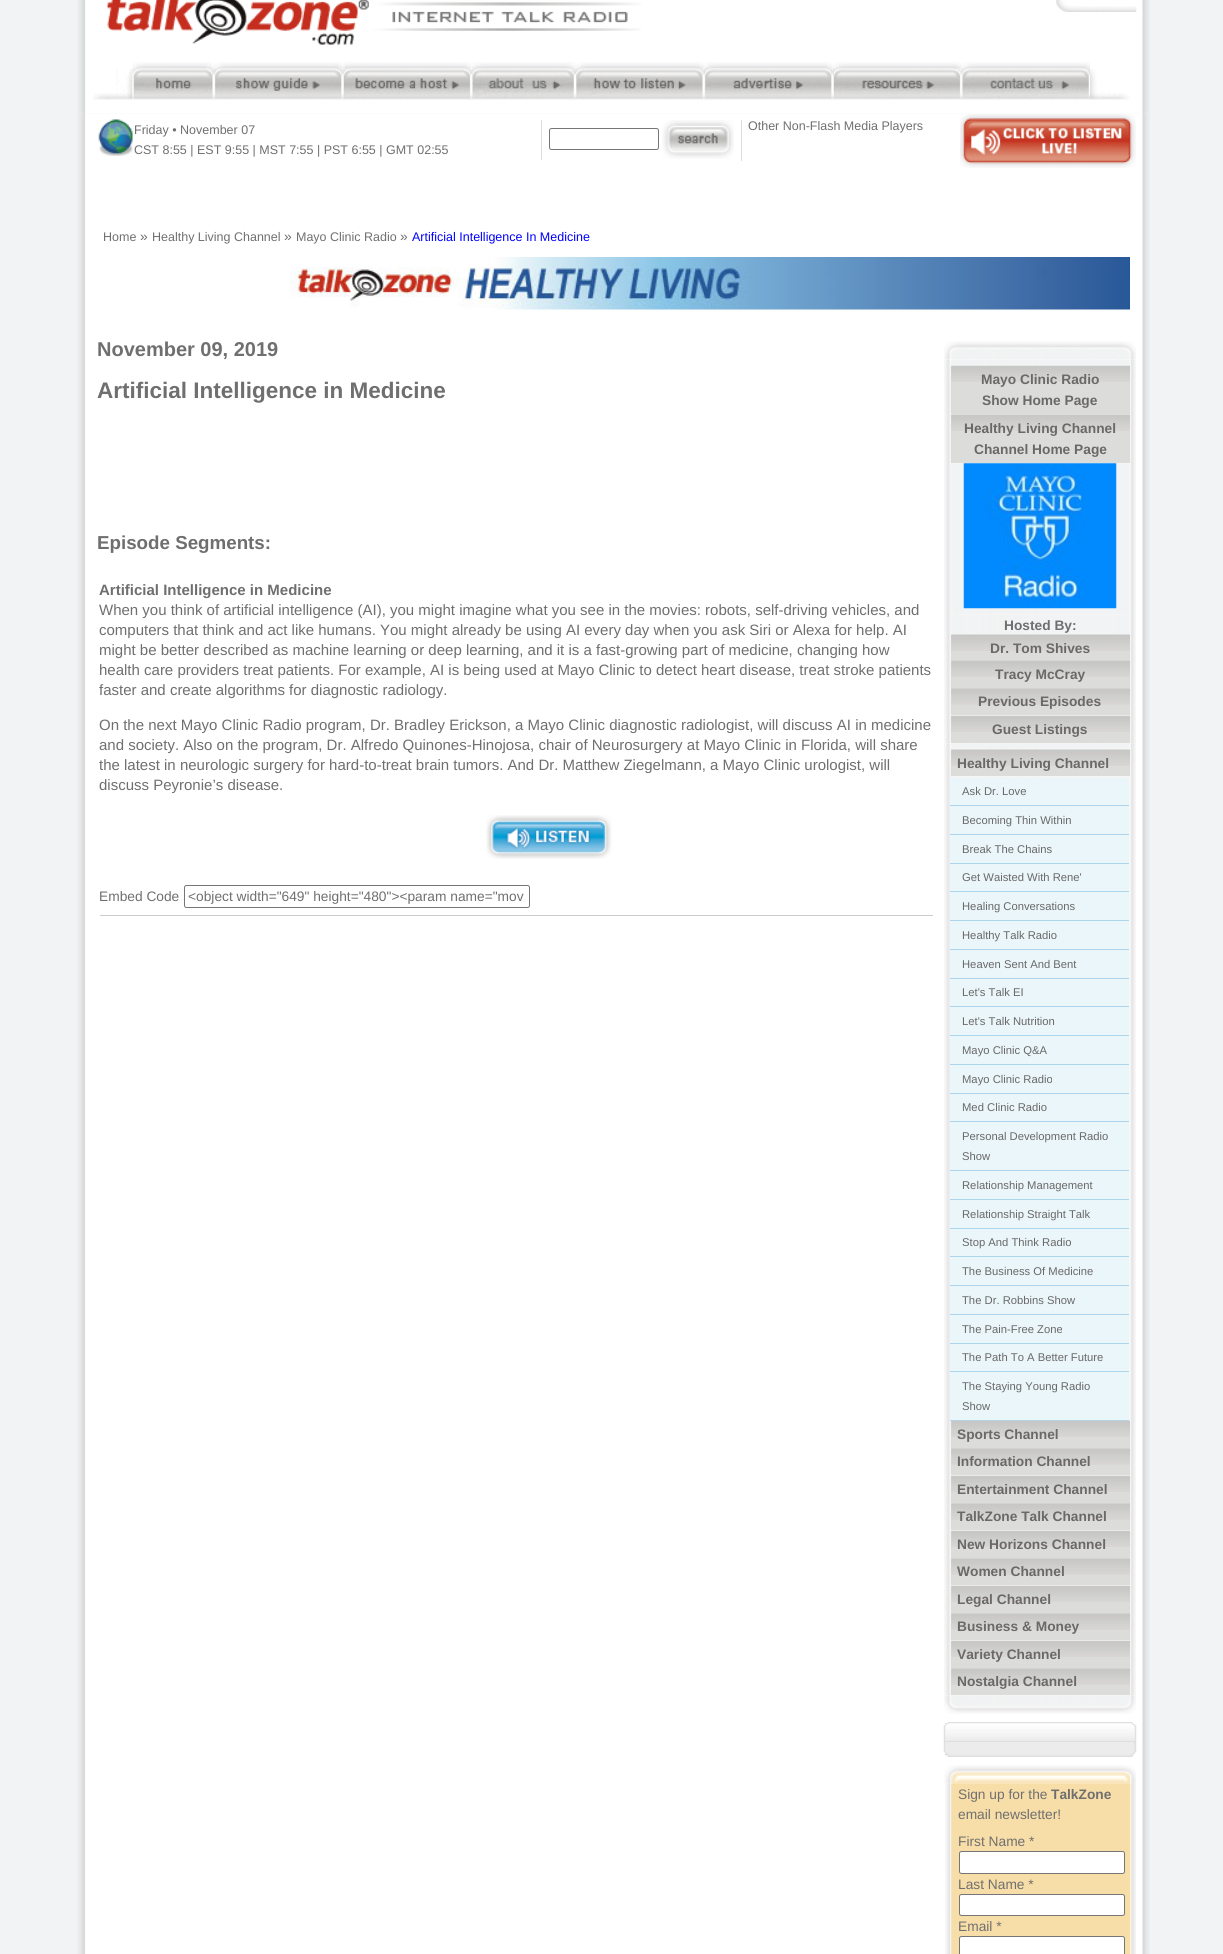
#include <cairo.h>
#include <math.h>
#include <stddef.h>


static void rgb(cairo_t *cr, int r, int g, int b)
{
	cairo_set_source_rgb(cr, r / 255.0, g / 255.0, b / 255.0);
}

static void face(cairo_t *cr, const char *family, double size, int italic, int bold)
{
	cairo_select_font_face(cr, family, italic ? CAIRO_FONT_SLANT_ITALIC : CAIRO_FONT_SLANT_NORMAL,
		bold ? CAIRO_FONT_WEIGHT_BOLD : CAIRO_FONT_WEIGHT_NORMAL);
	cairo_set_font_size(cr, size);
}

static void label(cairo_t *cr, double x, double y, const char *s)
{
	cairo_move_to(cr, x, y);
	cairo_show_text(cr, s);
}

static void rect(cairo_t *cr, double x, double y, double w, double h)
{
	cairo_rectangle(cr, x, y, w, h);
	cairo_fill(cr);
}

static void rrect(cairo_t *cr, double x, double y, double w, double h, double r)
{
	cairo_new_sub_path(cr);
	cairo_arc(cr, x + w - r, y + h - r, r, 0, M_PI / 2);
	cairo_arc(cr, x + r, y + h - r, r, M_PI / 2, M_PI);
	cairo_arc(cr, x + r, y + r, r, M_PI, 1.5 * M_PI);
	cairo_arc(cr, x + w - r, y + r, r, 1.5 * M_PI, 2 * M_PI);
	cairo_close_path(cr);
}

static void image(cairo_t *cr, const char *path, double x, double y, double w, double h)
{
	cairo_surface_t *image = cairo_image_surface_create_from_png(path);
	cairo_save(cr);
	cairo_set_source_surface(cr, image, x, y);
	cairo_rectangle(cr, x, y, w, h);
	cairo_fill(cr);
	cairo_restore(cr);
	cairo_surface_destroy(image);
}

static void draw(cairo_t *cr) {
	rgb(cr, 241, 243, 244);
	cairo_paint(cr);
	image(cr, "image0.png", 77, 0, 1073, 113);
	image(cr, "image1.png", 107, 0, 534, 45);
	image(cr, "image2.png", 1056, 0, 19, 12);
	image(cr, "image3.png", 1075, 6, 62, 6);
	image(cr, "image4.png", 93, 68, 40, 32);
	image(cr, "image5.png", 132, 62, 82, 38);
	image(cr, "image6.png", 214, 62, 129, 38);
	image(cr, "image7.png", 342, 62, 130, 38);
	image(cr, "image8.png", 471, 62, 104, 38);
	image(cr, "image9.png", 575, 62, 129, 38);
	image(cr, "image10.png", 704, 62, 129, 38);
	image(cr, "image11.png", 832, 62, 130, 38);
	image(cr, "image12.png", 961, 62, 129, 38);
	image(cr, "image13.png", 1090, 69, 40, 31);
	image(cr, "image14.png", 77, 113, 1073, 1841);
	rgb(cr, 222, 222, 222);
	rect(cr, 541, 120, 1, 40);
	image(cr, "image15.png", 98, 119, 35, 37);
	face(cr, "Liberation Sans", 12.5, 0, 0);
	rgb(cr, 112, 111, 111);
	label(cr, 134, 134, "Friday • November 07");
	label(cr, 134, 154, "CST 8:55 | EST 9:55 | MST 7:55 | PST 6:55 | GMT 02:55");
	rgb(cr, 222, 222, 222);
	rect(cr, 741, 120, 1, 41);
	rrect(cr, 549.5, 128.5, 109, 21, 2);
	rgb(cr, 118, 118, 118);
	cairo_set_line_width(cr, 1);
	cairo_stroke(cr);
	image(cr, "image16.png", 662, 120, 72, 39);
	rgb(cr, 112, 111, 111);
	label(cr, 748, 130, "Other Non-Flash Media Players");
	image(cr, "image17.png", 960, 114, 176, 54);
	label(cr, 103, 241, "Home");
	face(cr, "Liberation Sans", 13.75, 0, 0);
	label(cr, 140, 241, "»");
	face(cr, "Liberation Sans", 12.5, 0, 0);
	label(cr, 152, 241, "Healthy Living Channel");
	face(cr, "Liberation Sans", 13.75, 0, 0);
	label(cr, 284, 241, "»");
	face(cr, "Liberation Sans", 12.5, 0, 0);
	label(cr, 296, 241, "Mayo Clinic Radio");
	face(cr, "Liberation Sans", 13.75, 0, 0);
	label(cr, 400, 241, "»");
	face(cr, "Liberation Sans", 12.5, 0, 0);
	rgb(cr, 0, 0, 255);
	label(cr, 412, 241, "Artificial Intelligence In Medicine");
	image(cr, "image18.png", 290, 257, 840, 53);
	face(cr, "Liberation Sans", 20, 0, 1);
	rgb(cr, 112, 111, 111);
	label(cr, 97, 356, "November 09, 2019");
	face(cr, "Liberation Sans", 22.5, 0, 1);
	label(cr, 97, 398, "Artificial Intelligence in Medicine");
	face(cr, "Liberation Sans", 18.75, 0, 1);
	label(cr, 97, 549, "Episode Segments:");
	face(cr, "Liberation Sans", 15, 0, 1);
	label(cr, 99, 595, "Artificial Intelligence in Medicine");
	face(cr, "Liberation Sans", 15, 0, 0);
	label(cr, 99, 615, "When you think of artificial intelligence (AI), you might imagine what you see in the movies: robots, self-driving vehicles, and");
	label(cr, 99, 635, "computers that think and act like humans. You might already be using AI every day when you ask Siri or Alexa for help. AI");
	label(cr, 99, 655, "might be better described as machine learning or deep learning, and it is a fast-growing part of medicine, changing how");
	label(cr, 99, 675, "health care providers treat patients. For example, AI is being used at Mayo Clinic to detect heart disease, treat stroke patients");
	label(cr, 99, 695, "faster and create algorithms for diagnostic radiology.");
	label(cr, 99, 730, "On the next Mayo Clinic Radio program, Dr. Bradley Erickson, a Mayo Clinic diagnostic radiologist, will discuss AI in medicine");
	label(cr, 99, 750, "and society. Also on the program, Dr. Alfredo Quinones-Hinojosa, chair of Neurosurgery at Mayo Clinic in Florida, will share");
	label(cr, 99, 770, "the latest in neurologic surgery for hard-to-treat brain tumors. And Dr. Matthew Ziegelmann, a Mayo Clinic urologist, will");
	label(cr, 99, 790, "discuss Peyronie’s disease.");
	image(cr, "image19.png", 486, 815, 126, 44);
	face(cr, "Liberation Sans", 13.75, 0, 0);
	label(cr, 99, 901, "Embed Code");
	rrect(cr, 184.5, 885.5, 345, 22, 2);
	rgb(cr, 118, 118, 118);
	cairo_stroke(cr);
	rgb(cr, 112, 111, 111);
	label(cr, 188, 901, "<object width=\"649\" height=\"480\"><param name=\"mov");
	rgb(cr, 204, 204, 204);
	rect(cr, 100, 915, 833, 1);
	image(cr, "image21.png", 944, 359, 192, 385);
	image(cr, "image20.png", 944, 341, 192, 19);
	rgb(cr, 246, 245, 245);
	rect(cr, 950, 414, 181, 1);
	rect(cr, 950, 366, 1, 49);
	rgb(cr, 220, 220, 219);
	rect(cr, 951, 366, 179, 48);
	image(cr, "image22.png", 951, 365, 179, 17);
	face(cr, "Liberation Sans", 13.75, 0, 1);
	rgb(cr, 106, 104, 104);
	label(cr, 981, 384, "Mayo Clinic Radio");
	label(cr, 982, 405, "Show Home Page");
	rgb(cr, 246, 245, 245);
	rect(cr, 950, 463, 181, 1);
	rect(cr, 950, 415, 1, 49);
	rgb(cr, 220, 220, 219);
	rect(cr, 951, 415, 179, 48);
	image(cr, "image23.png", 951, 414, 179, 17);
	rgb(cr, 106, 104, 104);
	label(cr, 964, 433, "Healthy Living Channel");
	label(cr, 974, 454, "Channel Home Page");
	rgb(cr, 246, 245, 245);
	rect(cr, 950, 614, 181, 1);
	rect(cr, 950, 464, 1, 151);
	image(cr, "image24.png", 963, 463, 154, 146);
	rect(cr, 950, 688, 181, 1);
	rect(cr, 950, 615, 1, 74);
	rgb(cr, 112, 111, 111);
	label(cr, 1004, 630, "Hosted By:");
	rgb(cr, 220, 220, 219);
	rect(cr, 951, 635, 179, 53);
	image(cr, "image25.png", 951, 634, 179, 17);
	rgb(cr, 106, 104, 104);
	label(cr, 990, 653, "Dr. Tom Shives");
	image(cr, "image26.png", 951, 660, 179, 17);
	label(cr, 995, 679, "Tracy McCray");
	rgb(cr, 246, 245, 245);
	rect(cr, 950, 715, 181, 1);
	rect(cr, 950, 689, 1, 55);
	rgb(cr, 220, 220, 219);
	rect(cr, 951, 689, 179, 26);
	image(cr, "image27.png", 951, 688, 179, 17);
	rgb(cr, 106, 104, 104);
	label(cr, 978, 706, "Previous Episodes");
	rgb(cr, 246, 245, 245);
	rect(cr, 1130, 743, 1, 1);
	rgb(cr, 220, 220, 219);
	rect(cr, 951, 716, 179, 27);
	image(cr, "image28.png", 951, 715, 179, 17);
	rgb(cr, 106, 104, 104);
	label(cr, 992, 734, "Guest Listings");
	image(cr, "image29.png", 944, 743, 192, 953);
	rgb(cr, 246, 245, 245);
	rect(cr, 950, 776, 181, 1);
	rect(cr, 950, 750, 1, 28);
	rgb(cr, 220, 220, 219);
	rect(cr, 951, 750, 179, 26);
	image(cr, "image25.png", 951, 749, 179, 17);
	rgb(cr, 106, 104, 104);
	label(cr, 957, 768, "Healthy Living Channel");
	rgb(cr, 234, 246, 250);
	rect(cr, 950, 778, 179, 27);
	rgb(cr, 170, 213, 236);
	rect(cr, 950, 805, 179, 1);
	face(cr, "Liberation Sans", 11.25, 0, 0);
	rgb(cr, 106, 104, 104);
	label(cr, 962, 795, "Ask Dr. Love");
	rgb(cr, 234, 246, 250);
	rect(cr, 950, 806, 179, 28);
	rgb(cr, 170, 213, 236);
	rect(cr, 950, 834, 179, 1);
	rgb(cr, 106, 104, 104);
	label(cr, 962, 824, "Becoming Thin Within");
	rgb(cr, 234, 246, 250);
	rect(cr, 950, 835, 179, 28);
	rgb(cr, 170, 213, 236);
	rect(cr, 950, 863, 179, 1);
	rgb(cr, 106, 104, 104);
	label(cr, 962, 853, "Break The Chains");
	rgb(cr, 234, 246, 250);
	rect(cr, 950, 864, 179, 56);
	rgb(cr, 170, 213, 236);
	rect(cr, 950, 891, 179, 1);
	rgb(cr, 106, 104, 104);
	label(cr, 962, 881, "Get Waisted With Rene'");
	rgb(cr, 170, 213, 236);
	rect(cr, 950, 920, 179, 1);
	rgb(cr, 106, 104, 104);
	label(cr, 962, 910, "Healing Conversations");
	rgb(cr, 234, 246, 250);
	rect(cr, 950, 921, 179, 28);
	rgb(cr, 170, 213, 236);
	rect(cr, 950, 949, 179, 1);
	rgb(cr, 106, 104, 104);
	label(cr, 962, 939, "Healthy Talk Radio");
	rgb(cr, 234, 246, 250);
	rect(cr, 950, 950, 179, 28);
	rgb(cr, 170, 213, 236);
	rect(cr, 950, 978, 179, 1);
	rgb(cr, 106, 104, 104);
	label(cr, 962, 968, "Heaven Sent And Bent");
	rgb(cr, 234, 246, 250);
	rect(cr, 950, 979, 179, 56);
	rgb(cr, 170, 213, 236);
	rect(cr, 950, 1006, 179, 1);
	rgb(cr, 106, 104, 104);
	label(cr, 962, 996, "Let's Talk EI");
	rgb(cr, 170, 213, 236);
	rect(cr, 950, 1035, 179, 1);
	rgb(cr, 106, 104, 104);
	label(cr, 962, 1025, "Let's Talk Nutrition");
	rgb(cr, 234, 246, 250);
	rect(cr, 950, 1036, 179, 28);
	rgb(cr, 170, 213, 236);
	rect(cr, 950, 1064, 179, 1);
	rgb(cr, 106, 104, 104);
	label(cr, 962, 1054, "Mayo Clinic Q&A");
	rgb(cr, 234, 246, 250);
	rect(cr, 950, 1065, 179, 28);
	rgb(cr, 170, 213, 236);
	rect(cr, 950, 1093, 179, 1);
	rgb(cr, 106, 104, 104);
	label(cr, 962, 1083, "Mayo Clinic Radio");
	rgb(cr, 234, 246, 250);
	rect(cr, 950, 1094, 179, 76);
	rgb(cr, 170, 213, 236);
	rect(cr, 950, 1121, 179, 1);
	rgb(cr, 106, 104, 104);
	label(cr, 962, 1111, "Med Clinic Radio");
	rgb(cr, 170, 213, 236);
	rect(cr, 950, 1170, 179, 1);
	rgb(cr, 106, 104, 104);
	label(cr, 962, 1140, "Personal Development Radio");
	label(cr, 962, 1160, "Show");
	rgb(cr, 234, 246, 250);
	rect(cr, 950, 1171, 179, 28);
	rgb(cr, 170, 213, 236);
	rect(cr, 950, 1199, 179, 1);
	rgb(cr, 106, 104, 104);
	label(cr, 962, 1189, "Relationship Management");
	rgb(cr, 234, 246, 250);
	rect(cr, 950, 1200, 179, 28);
	rgb(cr, 170, 213, 236);
	rect(cr, 950, 1228, 179, 1);
	rgb(cr, 106, 104, 104);
	label(cr, 962, 1218, "Relationship Straight Talk");
	rgb(cr, 234, 246, 250);
	rect(cr, 950, 1229, 179, 56);
	rgb(cr, 170, 213, 236);
	rect(cr, 950, 1256, 179, 1);
	rgb(cr, 106, 104, 104);
	label(cr, 962, 1246, "Stop And Think Radio");
	rgb(cr, 170, 213, 236);
	rect(cr, 950, 1285, 179, 1);
	rgb(cr, 106, 104, 104);
	label(cr, 962, 1275, "The Business Of Medicine");
	rgb(cr, 234, 246, 250);
	rect(cr, 950, 1286, 179, 28);
	rgb(cr, 170, 213, 236);
	rect(cr, 950, 1314, 179, 1);
	rgb(cr, 106, 104, 104);
	label(cr, 962, 1304, "The Dr. Robbins Show");
	rgb(cr, 234, 246, 250);
	rect(cr, 950, 1315, 179, 28);
	rgb(cr, 170, 213, 236);
	rect(cr, 950, 1343, 179, 1);
	rgb(cr, 106, 104, 104);
	label(cr, 962, 1333, "The Pain-Free Zone");
	rgb(cr, 234, 246, 250);
	rect(cr, 950, 1344, 179, 76);
	rgb(cr, 170, 213, 236);
	rect(cr, 950, 1371, 179, 1);
	rgb(cr, 106, 104, 104);
	label(cr, 962, 1361, "The Path To A Better Future");
	rgb(cr, 170, 213, 236);
	rect(cr, 950, 1420, 179, 1);
	rgb(cr, 106, 104, 104);
	label(cr, 962, 1390, "The Staying Young Radio");
	label(cr, 962, 1410, "Show");
	rgb(cr, 246, 245, 245);
	rect(cr, 950, 1448, 181, 1);
	rect(cr, 950, 1421, 1, 28);
	rgb(cr, 220, 220, 219);
	rect(cr, 951, 1421, 179, 27);
	image(cr, "image30.png", 951, 1420, 179, 17);
	face(cr, "Liberation Sans", 13.75, 0, 1);
	rgb(cr, 106, 104, 104);
	label(cr, 957, 1439, "Sports Channel");
	rgb(cr, 246, 245, 245);
	rect(cr, 950, 1475, 181, 1);
	rect(cr, 950, 1449, 1, 27);
	rgb(cr, 220, 220, 219);
	rect(cr, 951, 1449, 179, 26);
	image(cr, "image27.png", 951, 1448, 179, 17);
	rgb(cr, 106, 104, 104);
	label(cr, 957, 1466, "Information Channel");
	rgb(cr, 246, 245, 245);
	rect(cr, 950, 1503, 181, 1);
	rect(cr, 950, 1476, 1, 28);
	rgb(cr, 220, 220, 219);
	rect(cr, 951, 1476, 179, 27);
	image(cr, "image28.png", 951, 1475, 179, 17);
	rgb(cr, 106, 104, 104);
	label(cr, 957, 1494, "Entertainment Channel");
	rgb(cr, 246, 245, 245);
	rect(cr, 950, 1530, 181, 1);
	rect(cr, 950, 1504, 1, 27);
	rgb(cr, 220, 220, 219);
	rect(cr, 951, 1504, 179, 26);
	image(cr, "image27.png", 951, 1503, 179, 17);
	rgb(cr, 106, 104, 104);
	label(cr, 957, 1521, "TalkZone Talk Channel");
	rgb(cr, 246, 245, 245);
	rect(cr, 950, 1558, 181, 1);
	rect(cr, 950, 1531, 1, 28);
	rgb(cr, 220, 220, 219);
	rect(cr, 951, 1531, 179, 27);
	image(cr, "image28.png", 951, 1530, 179, 17);
	rgb(cr, 106, 104, 104);
	label(cr, 957, 1549, "New Horizons Channel");
	rgb(cr, 246, 245, 245);
	rect(cr, 950, 1585, 181, 1);
	rect(cr, 950, 1559, 1, 27);
	rgb(cr, 220, 220, 219);
	rect(cr, 951, 1559, 179, 26);
	image(cr, "image27.png", 951, 1558, 179, 17);
	rgb(cr, 106, 104, 104);
	label(cr, 957, 1576, "Women Channel");
	rgb(cr, 246, 245, 245);
	rect(cr, 950, 1613, 181, 1);
	rect(cr, 950, 1586, 1, 28);
	rgb(cr, 220, 220, 219);
	rect(cr, 951, 1586, 179, 27);
	image(cr, "image28.png", 951, 1585, 179, 17);
	rgb(cr, 106, 104, 104);
	label(cr, 957, 1604, "Legal Channel");
	rgb(cr, 246, 245, 245);
	rect(cr, 950, 1640, 181, 1);
	rect(cr, 950, 1614, 1, 27);
	rgb(cr, 220, 220, 219);
	rect(cr, 951, 1614, 179, 26);
	image(cr, "image27.png", 951, 1613, 179, 17);
	rgb(cr, 106, 104, 104);
	label(cr, 957, 1631, "Business & Money");
	rgb(cr, 246, 245, 245);
	rect(cr, 950, 1668, 181, 1);
	rect(cr, 950, 1641, 1, 28);
	rgb(cr, 220, 220, 219);
	rect(cr, 951, 1641, 179, 27);
	image(cr, "image28.png", 951, 1640, 179, 17);
	rgb(cr, 106, 104, 104);
	label(cr, 957, 1659, "Variety Channel");
	rgb(cr, 246, 245, 245);
	rect(cr, 950, 1695, 181, 1);
	rect(cr, 950, 1669, 1, 27);
	rgb(cr, 220, 220, 219);
	rect(cr, 951, 1669, 179, 26);
	image(cr, "image27.png", 951, 1668, 179, 17);
	rgb(cr, 106, 104, 104);
	label(cr, 957, 1686, "Nostalgia Channel");
	image(cr, "image31.png", 944, 1696, 192, 18);
	image(cr, "image32.png", 943, 1722, 194, 20);
	image(cr, "image33.png", 943, 1742, 194, 15);
	image(cr, "image34.png", 944, 1765, 192, 19);
	image(cr, "image35.png", 945, 1783, 191, 171);
	face(cr, "Liberation Sans", 13.75, 0, 0);
	rgb(cr, 112, 111, 111);
	label(cr, 958, 1799, "Sign up for the");
	face(cr, "Liberation Sans", 13.75, 0, 1);
	label(cr, 1051, 1799, "TalkZone");
	face(cr, "Liberation Sans", 13.75, 0, 0);
	label(cr, 958, 1819, "email newsletter!");
	label(cr, 958, 1846, "First Name *");
	rgb(cr, 255, 255, 255);
	rrect(cr, 959.5, 1851.5, 165, 22, 2);
	cairo_fill_preserve(cr);
	rgb(cr, 118, 118, 118);
	cairo_stroke(cr);
	rgb(cr, 112, 111, 111);
	label(cr, 958, 1889, "Last Name *");
	rgb(cr, 255, 255, 255);
	rrect(cr, 959.5, 1894.5, 165, 21, 2);
	cairo_fill_preserve(cr);
	rgb(cr, 118, 118, 118);
	cairo_stroke(cr);
	rgb(cr, 112, 111, 111);
	label(cr, 958, 1931, "Email *");
	rgb(cr, 255, 255, 255);
	rrect(cr, 959.5, 1936.5, 165, 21, 2);
	cairo_fill_preserve(cr);
	rgb(cr, 118, 118, 118);
	cairo_stroke(cr);
}

int main(void) {
	cairo_surface_t *surface = cairo_image_surface_create(CAIRO_FORMAT_RGB24, 1223, 1954);
	cairo_t *cr = cairo_create(surface);
	cairo_font_options_t *options = cairo_font_options_create();
	cairo_font_options_set_hint_metrics(options, CAIRO_HINT_METRICS_OFF);
	cairo_font_options_set_hint_style(options, CAIRO_HINT_STYLE_NONE);
	cairo_set_font_options(cr, options);
	cairo_set_miter_limit(cr, 4);
	draw(cr);
	cairo_surface_write_to_png(surface, "render.png");
	cairo_font_options_destroy(options);
	cairo_destroy(cr);
	cairo_surface_destroy(surface);
	return 0;
}
